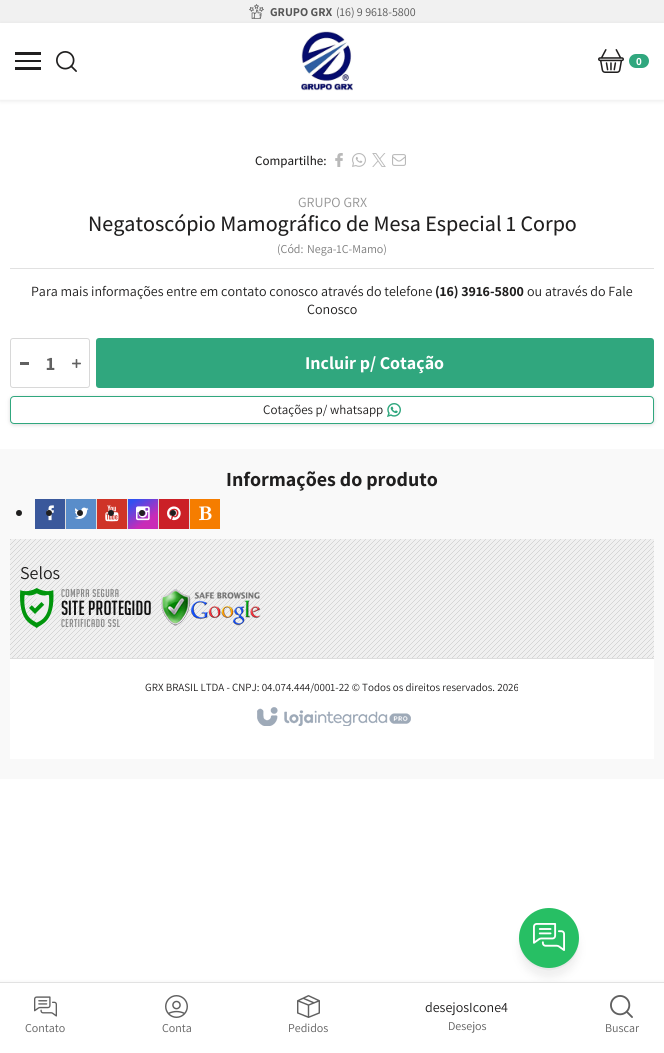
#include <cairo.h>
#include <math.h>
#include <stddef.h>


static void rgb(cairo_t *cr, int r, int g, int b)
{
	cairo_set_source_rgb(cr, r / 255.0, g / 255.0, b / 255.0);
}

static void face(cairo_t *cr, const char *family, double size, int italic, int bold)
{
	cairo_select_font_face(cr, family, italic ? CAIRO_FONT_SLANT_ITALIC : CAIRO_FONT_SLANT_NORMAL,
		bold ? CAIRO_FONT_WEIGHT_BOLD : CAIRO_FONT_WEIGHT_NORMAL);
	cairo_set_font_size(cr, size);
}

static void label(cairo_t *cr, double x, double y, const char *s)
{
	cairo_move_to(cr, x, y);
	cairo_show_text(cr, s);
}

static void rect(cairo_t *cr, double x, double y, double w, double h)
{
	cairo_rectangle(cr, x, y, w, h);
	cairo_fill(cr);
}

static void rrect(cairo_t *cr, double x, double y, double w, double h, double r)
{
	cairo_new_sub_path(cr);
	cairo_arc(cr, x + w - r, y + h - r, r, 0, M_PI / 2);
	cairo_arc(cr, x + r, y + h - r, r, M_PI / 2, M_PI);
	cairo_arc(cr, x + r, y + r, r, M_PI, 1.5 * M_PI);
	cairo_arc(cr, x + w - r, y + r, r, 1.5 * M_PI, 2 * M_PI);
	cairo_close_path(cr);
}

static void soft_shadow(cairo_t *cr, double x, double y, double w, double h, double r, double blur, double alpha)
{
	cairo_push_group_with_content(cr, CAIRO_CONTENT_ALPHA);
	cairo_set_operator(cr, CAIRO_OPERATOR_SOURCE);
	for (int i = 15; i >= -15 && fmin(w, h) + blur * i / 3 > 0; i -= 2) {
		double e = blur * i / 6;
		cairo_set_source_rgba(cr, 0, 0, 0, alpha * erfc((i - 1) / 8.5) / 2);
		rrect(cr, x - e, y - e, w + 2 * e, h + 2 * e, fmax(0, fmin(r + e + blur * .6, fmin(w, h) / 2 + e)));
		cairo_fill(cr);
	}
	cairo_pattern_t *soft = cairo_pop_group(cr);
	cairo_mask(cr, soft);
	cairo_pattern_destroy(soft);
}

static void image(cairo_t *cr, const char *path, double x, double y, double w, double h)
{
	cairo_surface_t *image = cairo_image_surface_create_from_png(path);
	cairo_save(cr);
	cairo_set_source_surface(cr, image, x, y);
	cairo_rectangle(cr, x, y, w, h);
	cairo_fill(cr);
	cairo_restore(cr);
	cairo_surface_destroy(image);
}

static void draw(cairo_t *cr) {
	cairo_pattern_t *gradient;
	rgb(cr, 255, 255, 255);
	cairo_paint(cr);
	rgb(cr, 241, 241, 241);
	rect(cr, 0, 0, 664, 23);
	image(cr, "image0.png", 249, 4, 15, 15);
	face(cr, "Assistant", 12, 0, 1);
	rgb(cr, 86, 86, 86);
	label(cr, 270, 16, "GRUPO GRX");
	face(cr, "Assistant", 12, 0, 0);
	label(cr, 336, 16, "(16) 9 9618-5800");
	cairo_save(cr);
	cairo_set_fill_rule(cr, CAIRO_FILL_RULE_EVEN_ODD);
	cairo_new_path(cr);
	cairo_move_to(cr, 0, 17);
	cairo_line_to(cr, 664, 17);
	cairo_line_to(cr, 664, 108);
	cairo_line_to(cr, 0, 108);
	cairo_close_path(cr);
	cairo_move_to(cr, 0, 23);
	cairo_line_to(cr, 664, 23);
	cairo_line_to(cr, 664, 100);
	cairo_line_to(cr, 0, 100);
	cairo_close_path(cr);
	cairo_clip(cr);
	rgb(cr, 82, 82, 82);
	soft_shadow(cr, 0, 24, 664, 77, 0, 2, 0.13);
	cairo_restore(cr);
	rgb(cr, 252, 252, 252);
	rect(cr, 0, 99, 664, 1);
	rgb(cr, 32, 31, 31);
	rect(cr, 15, 67, 26, 3);
	rect(cr, 15, 60, 26, 2);
	rect(cr, 15, 52, 26, 3);
	image(cr, "image1.png", 56, 51, 21, 21);
	image(cr, "image2.png", 301, 31, 52, 60);
	image(cr, "image3.png", 598, 49, 26, 24);
	rgb(cr, 48, 167, 126);
	rrect(cr, 629, 54, 20, 14, 7);
	cairo_fill(cr);
	face(cr, "Assistant", 11, 0, 1);
	rgb(cr, 255, 255, 255);
	label(cr, 636, 65, "0");
	face(cr, "Assistant Medium", 13, 0, 0);
	rgb(cr, 32, 31, 31);
	label(cr, 255, 165, "Compartilhe:");
	image(cr, "image4.png", 335, 153, 8, 14);
	image(cr, "image5.png", 352, 153, 14, 14);
	image(cr, "image6.png", 372, 153, 14, 14);
	image(cr, "image7.png", 392, 154, 14, 12);
	rgb(cr, 225, 225, 225);
	rect(cr, 10, 268, 644, 1);
	face(cr, "Assistant", 14, 0, 0);
	rgb(cr, 148, 148, 148);
	label(cr, 298, 207, "GRUPO GRX");
	face(cr, "Assistant Medium", 22, 0, 0);
	rgb(cr, 32, 31, 31);
	label(cr, 88, 231, "Negatoscópio Mamográfico de Mesa Especial 1 Corpo");
	face(cr, "Assistant", 12, 0, 0);
	rgb(cr, 123, 123, 123);
	label(cr, 277, 253, "(Cód:");
	label(cr, 307, 253, "Nega-1C-Mamo)");
	face(cr, "Assistant", 14, 0, 0);
	rgb(cr, 32, 31, 31);
	label(cr, 31, 296, "Para mais informações entre em contato conosco através do telefone");
	face(cr, "Assistant", 14, 0, 1);
	label(cr, 435, 296, "(16) 3916-5800");
	face(cr, "Assistant", 14, 0, 0);
	label(cr, 527, 296, "ou através do Fale");
	label(cr, 307, 314, "Conosco");
	rrect(cr, 10.5, 338.5, 79, 49, 2.5);
	rgb(cr, 216, 216, 216);
	cairo_set_line_width(cr, 1);
	cairo_stroke(cr);
	rgb(cr, 97, 97, 97);
	rect(cr, 20, 362, 9, 3);
	face(cr, "Assistant", 19, 0, 1);
	label(cr, 46, 370, "1");
	image(cr, "image8.png", 72, 359, 9, 9);
	rgb(cr, 48, 167, 126);
	rrect(cr, 96, 338, 558, 50, 3);
	cairo_fill(cr);
	face(cr, "Assistant", 18, 0, 1);
	rgb(cr, 255, 255, 255);
	label(cr, 305, 369, "Incluir p/ Cotação");
	rgb(cr, 177, 177, 177);
	soft_shadow(cr, 10, 397, 644, 28, 4, 2, 0.46);
	rgb(cr, 255, 255, 255);
	rrect(cr, 10.5, 396.5, 643, 27, 3.5);
	cairo_fill_preserve(cr);
	rgb(cr, 48, 167, 126);
	cairo_stroke(cr);
	face(cr, "Assistant", 13, 0, 0);
	rgb(cr, 32, 31, 31);
	label(cr, 263, 414, "Cotações p/ whatsapp");
	image(cr, "image9.png", 387, 403, 14, 14);
	rgb(cr, 249, 249, 249);
	rect(cr, 0, 449, 664, 330);
	face(cr, "Assistant", 20, 0, 1);
	rgb(cr, 32, 31, 31);
	label(cr, 226, 486, "Informações do produto");
	cairo_new_path(cr);
	cairo_arc(cr, 19, 513, 3, 0, 2 * M_PI);
	cairo_fill(cr);
	rgb(cr, 58, 88, 155);
	rect(cr, 35, 499, 30, 30);
	image(cr, "image10.png", 47, 505, 7, 16);
	rgb(cr, 221, 221, 221);
	rect(cr, 65, 499, 1, 30);
	rgb(cr, 32, 31, 31);
	cairo_arc(cr, 49, 513, 3, 0, 2 * M_PI);
	cairo_fill(cr);
	rgb(cr, 89, 141, 202);
	rect(cr, 66, 499, 30, 30);
	image(cr, "image11.png", 74, 507, 15, 12);
	rgb(cr, 221, 221, 221);
	rect(cr, 96, 499, 1, 30);
	rgb(cr, 32, 31, 31);
	cairo_arc(cr, 80, 513, 3, 0, 2 * M_PI);
	cairo_fill(cr);
	rgb(cr, 207, 52, 39);
	rect(cr, 97, 499, 30, 30);
	image(cr, "image12.png", 105, 505, 14, 17);
	rgb(cr, 221, 221, 221);
	rect(cr, 127, 499, 1, 30);
	rgb(cr, 32, 31, 31);
	cairo_arc(cr, 111, 513, 3, 0, 2 * M_PI);
	cairo_fill(cr);
	gradient = cairo_pattern_create_linear(131, 497, 155, 531);
	cairo_pattern_add_color_stop_rgba(gradient, 0.1, 0.188, 0.318, 0.945, 1);
	cairo_pattern_add_color_stop_rgba(gradient, 0.7, 0.788, 0.169, 0.718, 1);
	cairo_set_source(cr, gradient);
	cairo_pattern_destroy(gradient);
	rect(cr, 128, 499, 30, 30);
	image(cr, "image13.png", 136, 506, 14, 15);
	rgb(cr, 221, 221, 221);
	rect(cr, 158, 499, 1, 30);
	rgb(cr, 32, 31, 31);
	cairo_arc(cr, 142, 513, 3, 0, 2 * M_PI);
	cairo_fill(cr);
	rgb(cr, 203, 32, 39);
	rect(cr, 159, 499, 30, 30);
	image(cr, "image14.png", 167, 506, 14, 15);
	rgb(cr, 221, 221, 221);
	rect(cr, 189, 499, 1, 30);
	rgb(cr, 32, 31, 31);
	cairo_arc(cr, 173, 513, 3, 0, 2 * M_PI);
	cairo_fill(cr);
	rgb(cr, 245, 125, 0);
	rect(cr, 190, 499, 30, 30);
	image(cr, "image15.png", 199, 506, 13, 15);
	rgb(cr, 238, 238, 238);
	rect(cr, 10, 539, 644, 119);
	image(cr, "image16.png", 10, 539, 644, 119);
	face(cr, "Assistant", 18, 0, 0);
	rgb(cr, 32, 31, 31);
	label(cr, 20, 579, "Selos");
	image(cr, "image17.png", 20, 588, 131, 40);
	image(cr, "image18.png", 161, 589, 100, 37);
	rgb(cr, 255, 255, 255);
	rect(cr, 10, 659, 644, 100);
	rgb(cr, 221, 221, 221);
	rect(cr, 10, 658, 644, 1);
	face(cr, "Assistant", 11, 0, 0);
	rgb(cr, 32, 31, 31);
	label(cr, 145, 691, "GRX BRASIL LTDA - CNPJ: 04.074.444/0001-22 © Todos os direitos reservados. 2026");
	image(cr, "image19.png", 257, 707, 154, 19);
	rgb(cr, 103, 103, 103);
	soft_shadow(cr, 519, 918, 60, 60, 30, 4, 0.1);
	rgb(cr, 0, 0, 0);
	soft_shadow(cr, 519, 910, 60, 60, 30, 0.5, 0.04);
	rgb(cr, 39, 191, 100);
	cairo_arc(cr, 549, 938, 30, 0, 2 * M_PI);
	cairo_fill(cr);
	image(cr, "image20.png", 533, 923, 32, 28);
	rgb(cr, 82, 82, 82);
	soft_shadow(cr, 0, 982, 664, 71, 0, 2, 0.08);
	rgb(cr, 255, 255, 255);
	rect(cr, 0, 983, 664, 70);
	rgb(cr, 226, 226, 226);
	rect(cr, 0, 982, 664, 1);
	image(cr, "image21.png", 34, 996, 23, 21);
	face(cr, "Assistant", 12, 0, 0);
	rgb(cr, 97, 97, 97);
	label(cr, 25, 1032, "Contato");
	image(cr, "image22.png", 165, 995, 23, 23);
	label(cr, 162, 1032, "Conta");
	image(cr, "image23.png", 297, 995, 23, 23);
	label(cr, 288, 1032, "Pedidos");
	face(cr, "Assistant", 14, 0, 0);
	rgb(cr, 32, 31, 31);
	label(cr, 425, 1012, "desejosIcone4");
	face(cr, "Assistant", 12, 0, 0);
	rgb(cr, 97, 97, 97);
	label(cr, 448, 1030, "Desejos");
	image(cr, "image24.png", 610, 995, 23, 23);
	label(cr, 605, 1032, "Buscar");
}

int main(void) {
	cairo_surface_t *surface = cairo_image_surface_create(CAIRO_FORMAT_RGB24, 664, 1053);
	cairo_t *cr = cairo_create(surface);
	cairo_font_options_t *options = cairo_font_options_create();
	cairo_font_options_set_hint_metrics(options, CAIRO_HINT_METRICS_OFF);
	cairo_font_options_set_hint_style(options, CAIRO_HINT_STYLE_NONE);
	cairo_set_font_options(cr, options);
	cairo_set_miter_limit(cr, 4);
	draw(cr);
	cairo_surface_write_to_png(surface, "render.png");
	cairo_font_options_destroy(options);
	cairo_destroy(cr);
	cairo_surface_destroy(surface);
	return 0;
}
